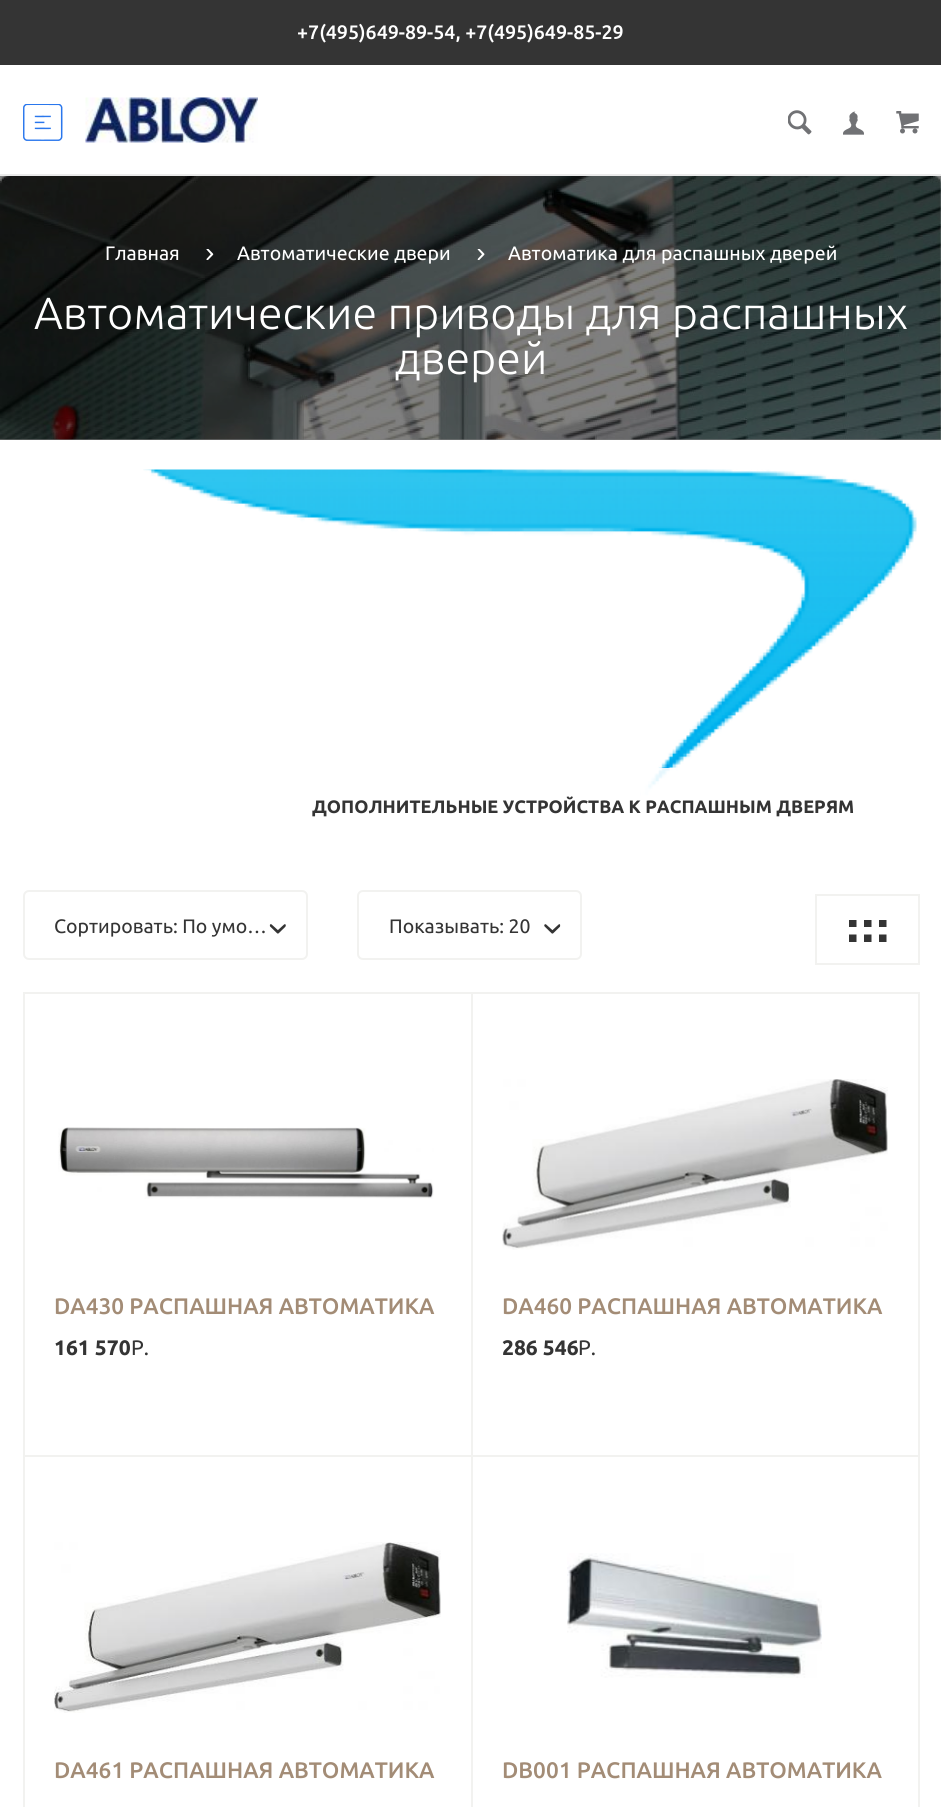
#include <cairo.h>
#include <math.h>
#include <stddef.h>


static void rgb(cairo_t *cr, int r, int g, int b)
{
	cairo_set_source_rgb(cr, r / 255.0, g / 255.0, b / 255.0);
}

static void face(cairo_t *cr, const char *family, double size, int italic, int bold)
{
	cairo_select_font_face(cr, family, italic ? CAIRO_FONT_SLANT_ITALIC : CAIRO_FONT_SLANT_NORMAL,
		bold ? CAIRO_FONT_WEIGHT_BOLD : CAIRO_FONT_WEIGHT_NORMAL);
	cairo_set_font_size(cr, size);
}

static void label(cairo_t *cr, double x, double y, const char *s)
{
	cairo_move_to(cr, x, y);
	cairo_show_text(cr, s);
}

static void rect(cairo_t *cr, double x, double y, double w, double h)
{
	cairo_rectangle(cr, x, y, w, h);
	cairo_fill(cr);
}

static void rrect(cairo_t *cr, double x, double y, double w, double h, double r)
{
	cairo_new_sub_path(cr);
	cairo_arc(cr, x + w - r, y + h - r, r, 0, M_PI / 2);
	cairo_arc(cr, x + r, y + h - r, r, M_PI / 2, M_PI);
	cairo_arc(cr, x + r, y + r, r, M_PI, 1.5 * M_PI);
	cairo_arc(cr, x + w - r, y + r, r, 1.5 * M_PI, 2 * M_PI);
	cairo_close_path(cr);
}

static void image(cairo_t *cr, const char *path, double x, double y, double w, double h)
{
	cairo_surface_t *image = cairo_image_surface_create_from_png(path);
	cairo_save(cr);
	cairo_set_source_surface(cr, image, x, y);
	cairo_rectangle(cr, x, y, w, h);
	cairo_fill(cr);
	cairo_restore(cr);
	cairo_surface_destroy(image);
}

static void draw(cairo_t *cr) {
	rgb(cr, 255, 255, 255);
	cairo_paint(cr);
	rgb(cr, 128, 128, 128);
	rect(cr, 0, 439, 941, 1);
	rgb(cr, 234, 234, 234);
	rect(cr, 0, 174, 941, 2);
	rgb(cr, 52, 52, 52);
	rect(cr, 0, 0, 941, 65);
	face(cr, "Ubuntu Medium", 19.5, 0, 0);
	rgb(cr, 255, 255, 255);
	label(cr, 297, 39, "+7(495)649-89-54, +7(495)649-85-29");
	image(cr, "image0.png", 23, 104, 40, 37);
	image(cr, "image1.png", 85, 97, 173, 46);
	image(cr, "image2.png", 788, 110, 24, 25);
	image(cr, "image3.png", 843, 111, 21, 24);
	image(cr, "image4.png", 896, 111, 23, 23);
	image(cr, "image5.png", 0, 176, 941, 264);
	face(cr, "Ubuntu", 19.5, 0, 0);
	label(cr, 105, 260, "Главная");
	image(cr, "image6.png", 206, 249, 8, 11);
	label(cr, 237, 260, "Автоматические двери");
	image(cr, "image7.png", 477, 249, 8, 11);
	label(cr, 508, 260, "Автоматика для распашных дверей");
	face(cr, "Ubuntu Light", 45, 0, 0);
	label(cr, 34, 329, "Автоматические приводы для распашных");
	label(cr, 395, 374, "дверей");
	image(cr, "image8.png", 143, 469, 774, 327);
	cairo_set_source_rgba(cr, 1, 1, 1, 0.9);
	rect(cr, 641, 768, 35, 28);
	face(cr, "Ubuntu", 18, 0, 1);
	rgb(cr, 52, 52, 52);
	label(cr, 312, 813, "ДОПОЛНИТЕЛЬНЫЕ УСТРОЙСТВА К РАСПАШНЫМ ДВЕРЯМ");
	rrect(cr, 24, 891, 283, 68, 5);
	rgb(cr, 242, 242, 240);
	cairo_stroke(cr);
	face(cr, "Ubuntu", 19.5, 0, 0);
	rgb(cr, 52, 52, 52);
	label(cr, 54, 933, "Сортировать: По умо…");
	image(cr, "image9.png", 269, 924, 17, 10);
	rrect(cr, 358, 891, 223, 68, 5);
	rgb(cr, 242, 242, 240);
	cairo_stroke(cr);
	rgb(cr, 52, 52, 52);
	label(cr, 389, 933, "Показывать: 20");
	image(cr, "image10.png", 544, 924, 17, 10);
	cairo_rectangle(cr, 816, 895, 103, 69);
	rgb(cr, 242, 242, 240);
	cairo_stroke(cr);
	image(cr, "image11.png", 849, 920, 38, 22);
	rect(cr, 23, 992, 2, 815);
	rect(cr, 24, 992, 896, 2);
	rect(cr, 471, 992, 2, 465);
	rect(cr, 24, 1455, 449, 2);
	image(cr, "image12.png", 58, 1127, 376, 72);
	face(cr, "Ubuntu Medium", 22.5, 0, 0);
	rgb(cr, 163, 140, 118);
	label(cr, 54, 1314, "DA430 РАСПАШНАЯ АВТОМАТИКА");
	face(cr, "Ubuntu", 21, 0, 1);
	rgb(cr, 52, 52, 52);
	label(cr, 54, 1355, "161 570");
	face(cr, "Ubuntu", 21, 0, 0);
	label(cr, 131, 1355, "Р.");
	rgb(cr, 242, 242, 240);
	rect(cr, 918, 992, 2, 465);
	rect(cr, 473, 1455, 447, 2);
	image(cr, "image13.png", 502, 1079, 386, 171);
	face(cr, "Ubuntu Medium", 22.5, 0, 0);
	rgb(cr, 163, 140, 118);
	label(cr, 502, 1314, "DA460 РАСПАШНАЯ АВТОМАТИКА");
	face(cr, "Ubuntu", 21, 0, 1);
	rgb(cr, 52, 52, 52);
	label(cr, 502, 1355, "286 546");
	face(cr, "Ubuntu", 21, 0, 0);
	label(cr, 578, 1355, "Р.");
	rgb(cr, 242, 242, 240);
	rect(cr, 471, 1455, 2, 352);
	image(cr, "image14.png", 54, 1542, 387, 171);
	face(cr, "Ubuntu Medium", 22.5, 0, 0);
	rgb(cr, 163, 140, 118);
	label(cr, 54, 1778, "DA461 РАСПАШНАЯ АВТОМАТИКА");
	rgb(cr, 242, 242, 240);
	rect(cr, 918, 1455, 2, 352);
	image(cr, "image15.png", 567, 1553, 255, 125);
	rgb(cr, 163, 140, 118);
	label(cr, 502, 1778, "DB001 РАСПАШНАЯ АВТОМАТИКА");
}

int main(void) {
	cairo_surface_t *surface = cairo_image_surface_create(CAIRO_FORMAT_RGB24, 941, 1807);
	cairo_t *cr = cairo_create(surface);
	cairo_font_options_t *options = cairo_font_options_create();
	cairo_font_options_set_hint_metrics(options, CAIRO_HINT_METRICS_OFF);
	cairo_font_options_set_hint_style(options, CAIRO_HINT_STYLE_NONE);
	cairo_set_font_options(cr, options);
	cairo_set_miter_limit(cr, 4);
	draw(cr);
	cairo_surface_write_to_png(surface, "render.png");
	cairo_font_options_destroy(options);
	cairo_destroy(cr);
	cairo_surface_destroy(surface);
	return 0;
}
